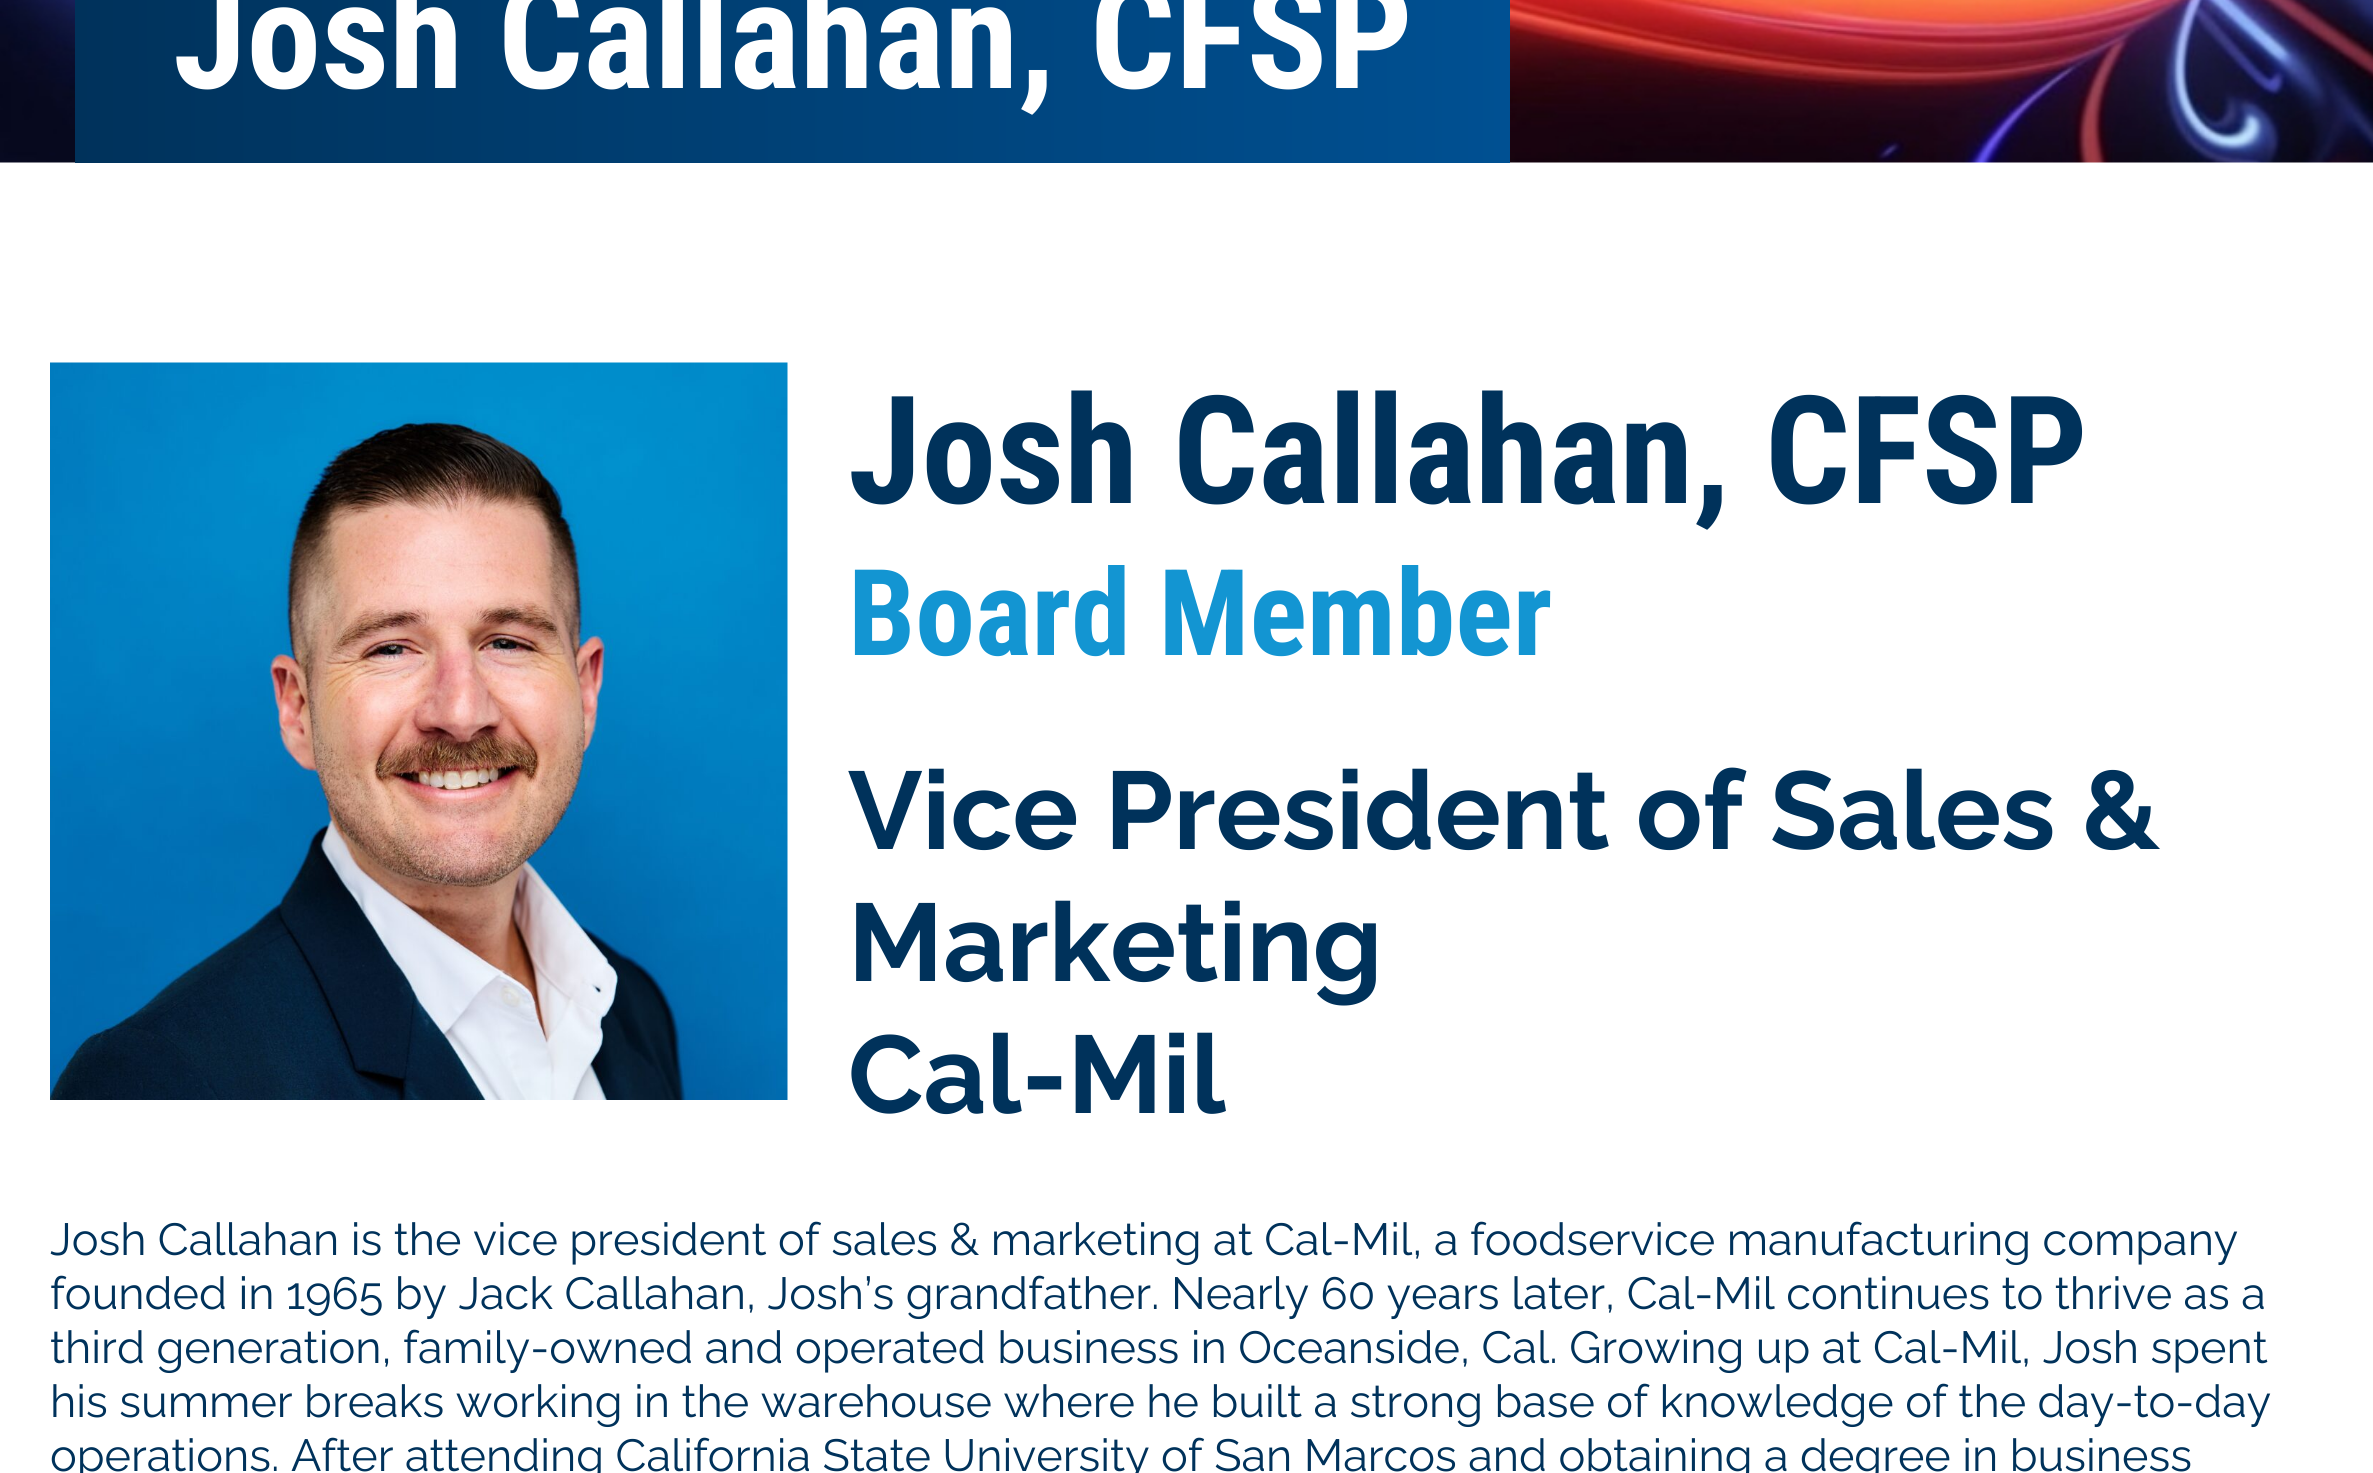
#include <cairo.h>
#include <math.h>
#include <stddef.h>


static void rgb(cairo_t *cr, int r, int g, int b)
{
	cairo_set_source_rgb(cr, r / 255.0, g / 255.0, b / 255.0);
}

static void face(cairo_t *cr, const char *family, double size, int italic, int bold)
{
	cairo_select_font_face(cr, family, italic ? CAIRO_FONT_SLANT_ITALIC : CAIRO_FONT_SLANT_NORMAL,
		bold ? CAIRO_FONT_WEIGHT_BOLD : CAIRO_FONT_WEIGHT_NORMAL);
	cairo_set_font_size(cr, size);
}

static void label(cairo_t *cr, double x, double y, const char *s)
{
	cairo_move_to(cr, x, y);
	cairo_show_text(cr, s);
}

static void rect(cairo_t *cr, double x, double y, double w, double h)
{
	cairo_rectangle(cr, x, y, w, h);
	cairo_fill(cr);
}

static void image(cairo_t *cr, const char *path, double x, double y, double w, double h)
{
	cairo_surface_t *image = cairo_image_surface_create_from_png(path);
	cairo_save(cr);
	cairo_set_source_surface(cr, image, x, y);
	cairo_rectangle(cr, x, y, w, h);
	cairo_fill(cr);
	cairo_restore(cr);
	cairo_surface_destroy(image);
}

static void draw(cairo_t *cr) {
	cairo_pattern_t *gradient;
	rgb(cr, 255, 255, 255);
	cairo_paint(cr);
	image(cr, "image0.png", 0, 0, 2373, 163);
	gradient = cairo_pattern_create_linear(75, 38, 1510, 37);
	cairo_pattern_add_color_stop_rgba(gradient, 0, 0, 0.196, 0.357, 1);
	cairo_pattern_add_color_stop_rgba(gradient, 1, 0, 0.314, 0.573, 1);
	cairo_set_source(cr, gradient);
	cairo_pattern_destroy(gradient);
	rect(cr, 75, 0, 1435, 163);
	face(cr, "Roboto Condensed", 150, 0, 1);
	rgb(cr, 255, 255, 255);
	label(cr, 173, 88, "Josh Callahan, CFSP");
	image(cr, "image1.png", 50, 362, 738, 738);
	rgb(cr, 0, 50, 91);
	label(cr, 848, 503, "Josh Callahan, CFSP");
	face(cr, "Roboto Condensed", 120, 0, 1);
	rgb(cr, 19, 149, 210);
	label(cr, 848, 655, "Board Member");
	face(cr, "Raleway", 110, 0, 1);
	rgb(cr, 0, 50, 91);
	label(cr, 848, 849, "Vice President of Sales &");
	label(cr, 848, 981, "Marketing");
	label(cr, 848, 1113, "Cal-Mil");
	face(cr, "Raleway", 45, 0, 0);
	label(cr, 50, 1255, "Josh Callahan is the vice president of sales & marketing at Cal-Mil, a foodservice manufacturing company");
	label(cr, 50, 1309, "founded in 1965 by Jack Callahan, Josh’s grandfather. Nearly 60 years later, Cal-Mil continues to thrive as a");
	label(cr, 50, 1363, "third generation, family-owned and operated business in Oceanside, Cal. Growing up at Cal-Mil, Josh spent");
	label(cr, 50, 1417, "his summer breaks working in the warehouse where he built a strong base of knowledge of the day-to-day");
	label(cr, 50, 1471, "operations. After attending California State University of San Marcos and obtaining a degree in business");
}

int main(void) {
	cairo_surface_t *surface = cairo_image_surface_create(CAIRO_FORMAT_RGB24, 2373, 1473);
	cairo_t *cr = cairo_create(surface);
	cairo_font_options_t *options = cairo_font_options_create();
	cairo_font_options_set_hint_metrics(options, CAIRO_HINT_METRICS_OFF);
	cairo_font_options_set_hint_style(options, CAIRO_HINT_STYLE_NONE);
	cairo_set_font_options(cr, options);
	cairo_set_miter_limit(cr, 4);
	draw(cr);
	cairo_surface_write_to_png(surface, "render.png");
	cairo_font_options_destroy(options);
	cairo_destroy(cr);
	cairo_surface_destroy(surface);
	return 0;
}
